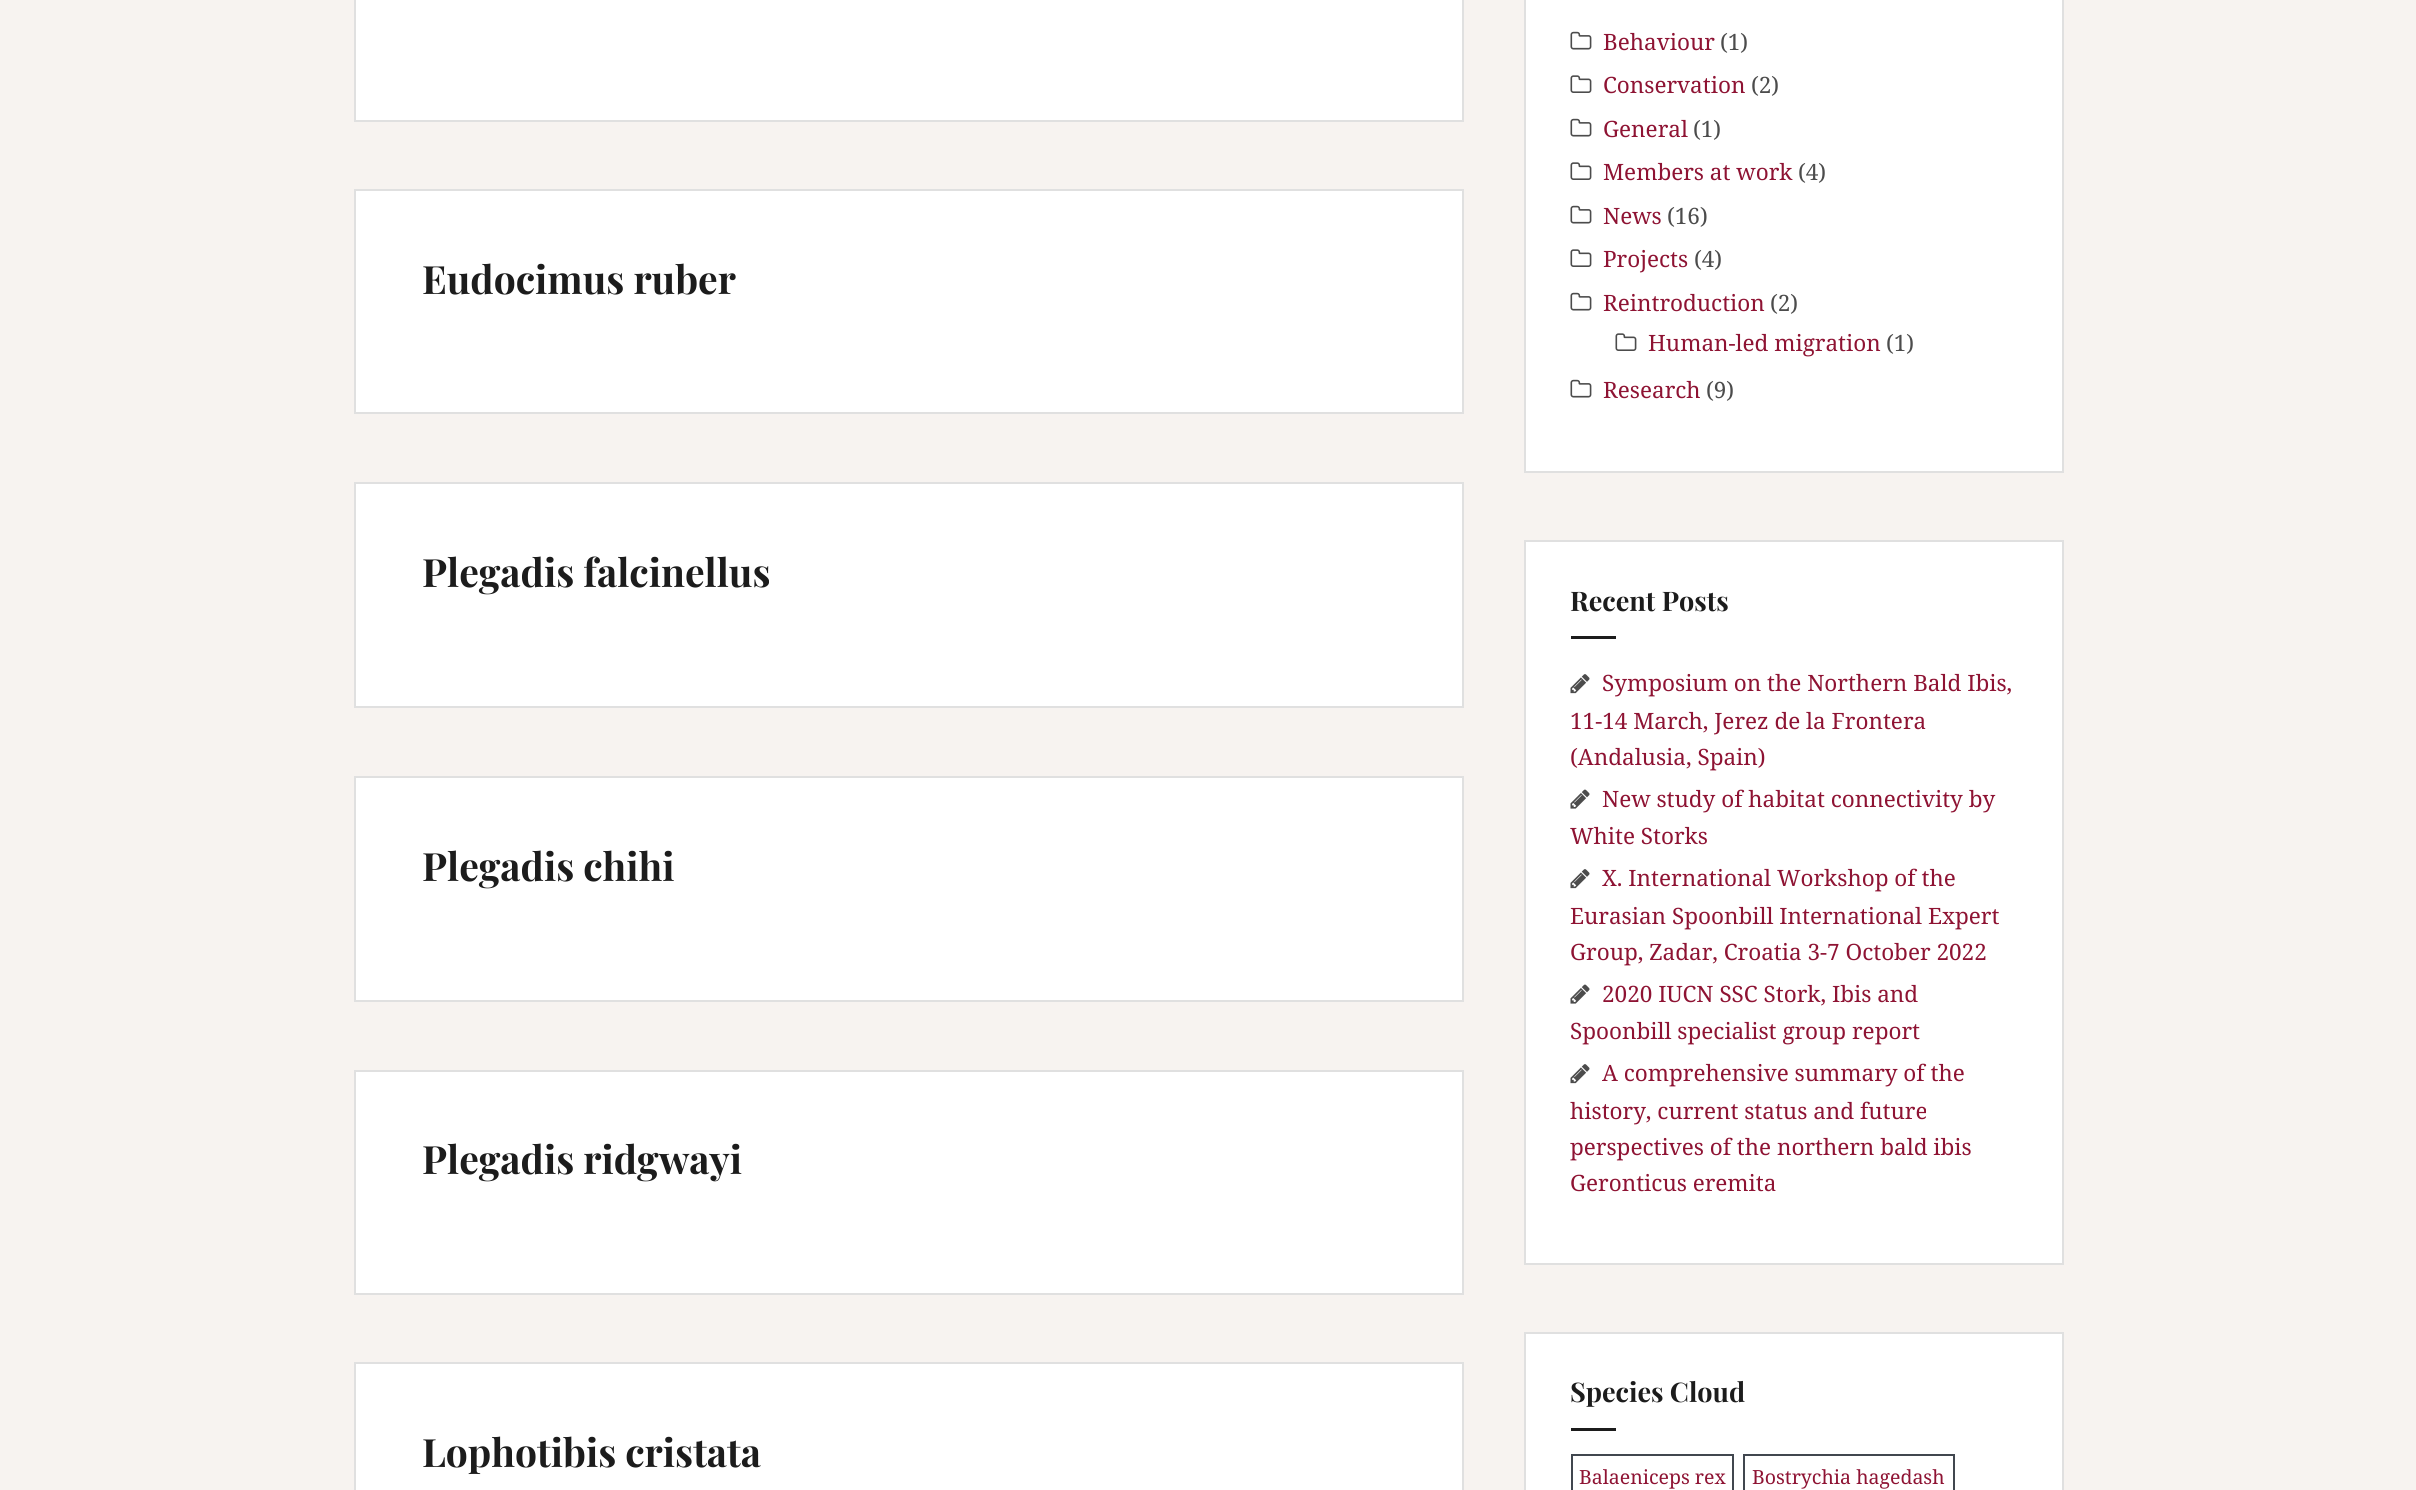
#include <cairo.h>
#include <math.h>
#include <stddef.h>


static void rgb(cairo_t *cr, int r, int g, int b)
{
	cairo_set_source_rgb(cr, r / 255.0, g / 255.0, b / 255.0);
}

static void face(cairo_t *cr, const char *family, double size, int italic, int bold)
{
	cairo_select_font_face(cr, family, italic ? CAIRO_FONT_SLANT_ITALIC : CAIRO_FONT_SLANT_NORMAL,
		bold ? CAIRO_FONT_WEIGHT_BOLD : CAIRO_FONT_WEIGHT_NORMAL);
	cairo_set_font_size(cr, size);
}

static void label(cairo_t *cr, double x, double y, const char *s)
{
	cairo_move_to(cr, x, y);
	cairo_show_text(cr, s);
}

static void rect(cairo_t *cr, double x, double y, double w, double h)
{
	cairo_rectangle(cr, x, y, w, h);
	cairo_fill(cr);
}

static void image(cairo_t *cr, const char *path, double x, double y, double w, double h)
{
	cairo_surface_t *image = cairo_image_surface_create_from_png(path);
	cairo_save(cr);
	cairo_set_source_surface(cr, image, x, y);
	cairo_rectangle(cr, x, y, w, h);
	cairo_fill(cr);
	cairo_restore(cr);
	cairo_surface_destroy(image);
}

static void draw(cairo_t *cr) {
	rgb(cr, 247, 243, 240);
	cairo_paint(cr);
	rgb(cr, 255, 255, 255);
	cairo_rectangle(cr, 355, -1, 1108, 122);
	cairo_fill_preserve(cr);
	rgb(cr, 224, 224, 224);
	cairo_stroke(cr);
	rgb(cr, 255, 255, 255);
	cairo_rectangle(cr, 355, 190, 1108, 223);
	cairo_fill_preserve(cr);
	rgb(cr, 224, 224, 224);
	cairo_stroke(cr);
	face(cr, "Playfair Display", 39, 0, 1);
	rgb(cr, 28, 28, 28);
	label(cr, 422, 294, "Eudocimus ruber");
	rgb(cr, 255, 255, 255);
	cairo_rectangle(cr, 355, 483, 1108, 224);
	cairo_fill_preserve(cr);
	rgb(cr, 224, 224, 224);
	cairo_stroke(cr);
	rgb(cr, 28, 28, 28);
	label(cr, 422, 587, "Plegadis falcinellus");
	rgb(cr, 255, 255, 255);
	cairo_rectangle(cr, 355, 777, 1108, 224);
	cairo_fill_preserve(cr);
	rgb(cr, 224, 224, 224);
	cairo_stroke(cr);
	rgb(cr, 28, 28, 28);
	label(cr, 422, 881, "Plegadis chihi");
	rgb(cr, 255, 255, 255);
	cairo_rectangle(cr, 355, 1071, 1108, 223);
	cairo_fill_preserve(cr);
	rgb(cr, 224, 224, 224);
	cairo_stroke(cr);
	rgb(cr, 28, 28, 28);
	label(cr, 422, 1174, "Plegadis ridgwayi");
	rgb(cr, 255, 255, 255);
	cairo_rectangle(cr, 355, 1363, 1108, 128);
	cairo_fill_preserve(cr);
	rgb(cr, 224, 224, 224);
	cairo_stroke(cr);
	rgb(cr, 28, 28, 28);
	label(cr, 422, 1467, "Lophotibis cristata");
	rgb(cr, 255, 255, 255);
	cairo_rectangle(cr, 1525, -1, 538, 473);
	cairo_fill_preserve(cr);
	rgb(cr, 224, 224, 224);
	cairo_stroke(cr);
	image(cr, "image0.png", 1570, 31, 22, 19);
	face(cr, "Noto Serif", 22.5, 0, 0);
	rgb(cr, 142, 19, 51);
	label(cr, 1603, 50, "Behaviour");
	rgb(cr, 76, 76, 76);
	label(cr, 1720, 50, "(1)");
	image(cr, "image1.png", 1570, 75, 22, 18);
	rgb(cr, 142, 19, 51);
	label(cr, 1603, 93, "Conservation");
	rgb(cr, 76, 76, 76);
	label(cr, 1751, 93, "(2)");
	image(cr, "image0.png", 1570, 118, 22, 19);
	rgb(cr, 142, 19, 51);
	label(cr, 1603, 137, "General");
	rgb(cr, 76, 76, 76);
	label(cr, 1693, 137, "(1)");
	image(cr, "image1.png", 1570, 162, 22, 18);
	rgb(cr, 142, 19, 51);
	label(cr, 1603, 180, "Members at work");
	rgb(cr, 76, 76, 76);
	label(cr, 1798, 180, "(4)");
	image(cr, "image0.png", 1570, 205, 22, 19);
	rgb(cr, 142, 19, 51);
	label(cr, 1603, 224, "News");
	rgb(cr, 76, 76, 76);
	label(cr, 1667, 224, "(16)");
	image(cr, "image1.png", 1570, 249, 22, 18);
	rgb(cr, 142, 19, 51);
	label(cr, 1603, 267, "Projects");
	rgb(cr, 76, 76, 76);
	label(cr, 1694, 267, "(4)");
	image(cr, "image0.png", 1570, 292, 22, 19);
	rgb(cr, 142, 19, 51);
	label(cr, 1603, 311, "Reintroduction");
	rgb(cr, 76, 76, 76);
	label(cr, 1770, 311, "(2)");
	image(cr, "image1.png", 1615, 333, 22, 18);
	rgb(cr, 142, 19, 51);
	label(cr, 1648, 351, "Human-led migration");
	rgb(cr, 76, 76, 76);
	label(cr, 1886, 351, "(1)");
	image(cr, "image0.png", 1570, 379, 22, 19);
	rgb(cr, 142, 19, 51);
	label(cr, 1603, 398, "Research");
	rgb(cr, 76, 76, 76);
	label(cr, 1706, 398, "(9)");
	rgb(cr, 255, 255, 255);
	cairo_rectangle(cr, 1525, 541, 538, 723);
	cairo_fill_preserve(cr);
	rgb(cr, 224, 224, 224);
	cairo_stroke(cr);
	face(cr, "Playfair Display", 27, 0, 1);
	rgb(cr, 28, 28, 28);
	label(cr, 1570, 611, "Recent Posts");
	rect(cr, 1571, 636, 45, 3);
	image(cr, "image2.png", 1570, 674, 20, 20);
	face(cr, "Noto Serif", 22.5, 0, 0);
	rgb(cr, 142, 19, 51);
	label(cr, 1602, 691, "Symposium on the Northern Bald Ibis,");
	label(cr, 1570, 729, "11-14 March, Jerez de la Frontera");
	label(cr, 1570, 765, "(Andalusia, Spain)");
	image(cr, "image3.png", 1570, 789, 20, 20);
	label(cr, 1602, 807, "New study of habitat connectivity by");
	label(cr, 1570, 844, "White Storks");
	image(cr, "image2.png", 1570, 869, 20, 20);
	label(cr, 1602, 886, "X. International Workshop of the");
	label(cr, 1570, 924, "Eurasian Spoonbill International Expert");
	label(cr, 1570, 960, "Group, Zadar, Croatia 3-7 October 2022");
	image(cr, "image3.png", 1570, 984, 20, 20);
	label(cr, 1602, 1002, "2020 IUCN SSC Stork, Ibis and");
	label(cr, 1570, 1039, "Spoonbill specialist group report");
	image(cr, "image2.png", 1570, 1064, 20, 20);
	label(cr, 1602, 1081, "A comprehensive summary of the");
	label(cr, 1570, 1119, "history, current status and future");
	label(cr, 1570, 1155, "perspectives of the northern bald ibis");
	label(cr, 1570, 1191, "Geronticus eremita");
	rgb(cr, 255, 255, 255);
	cairo_rectangle(cr, 1525, 1333, 538, 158);
	cairo_fill_preserve(cr);
	rgb(cr, 224, 224, 224);
	cairo_stroke(cr);
	face(cr, "Playfair Display", 27, 0, 1);
	rgb(cr, 28, 28, 28);
	label(cr, 1570, 1402, "Species Cloud");
	rect(cr, 1571, 1428, 45, 3);
	cairo_rectangle(cr, 1572, 1455, 161, 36);
	rgb(cr, 65, 71, 79);
	cairo_stroke(cr);
	face(cr, "Noto Serif", 19.5, 0, 0);
	rgb(cr, 142, 19, 51);
	label(cr, 1579, 1484, "Balaeniceps rex");
	cairo_rectangle(cr, 1744, 1455, 210, 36);
	rgb(cr, 65, 71, 79);
	cairo_stroke(cr);
	rgb(cr, 142, 19, 51);
	label(cr, 1752, 1484, "Bostrychia hagedash");
}

int main(void) {
	cairo_surface_t *surface = cairo_image_surface_create(CAIRO_FORMAT_RGB24, 2416, 1490);
	cairo_t *cr = cairo_create(surface);
	cairo_font_options_t *options = cairo_font_options_create();
	cairo_font_options_set_hint_metrics(options, CAIRO_HINT_METRICS_OFF);
	cairo_font_options_set_hint_style(options, CAIRO_HINT_STYLE_NONE);
	cairo_set_font_options(cr, options);
	cairo_set_miter_limit(cr, 4);
	draw(cr);
	cairo_surface_write_to_png(surface, "render.png");
	cairo_font_options_destroy(options);
	cairo_destroy(cr);
	cairo_surface_destroy(surface);
	return 0;
}
